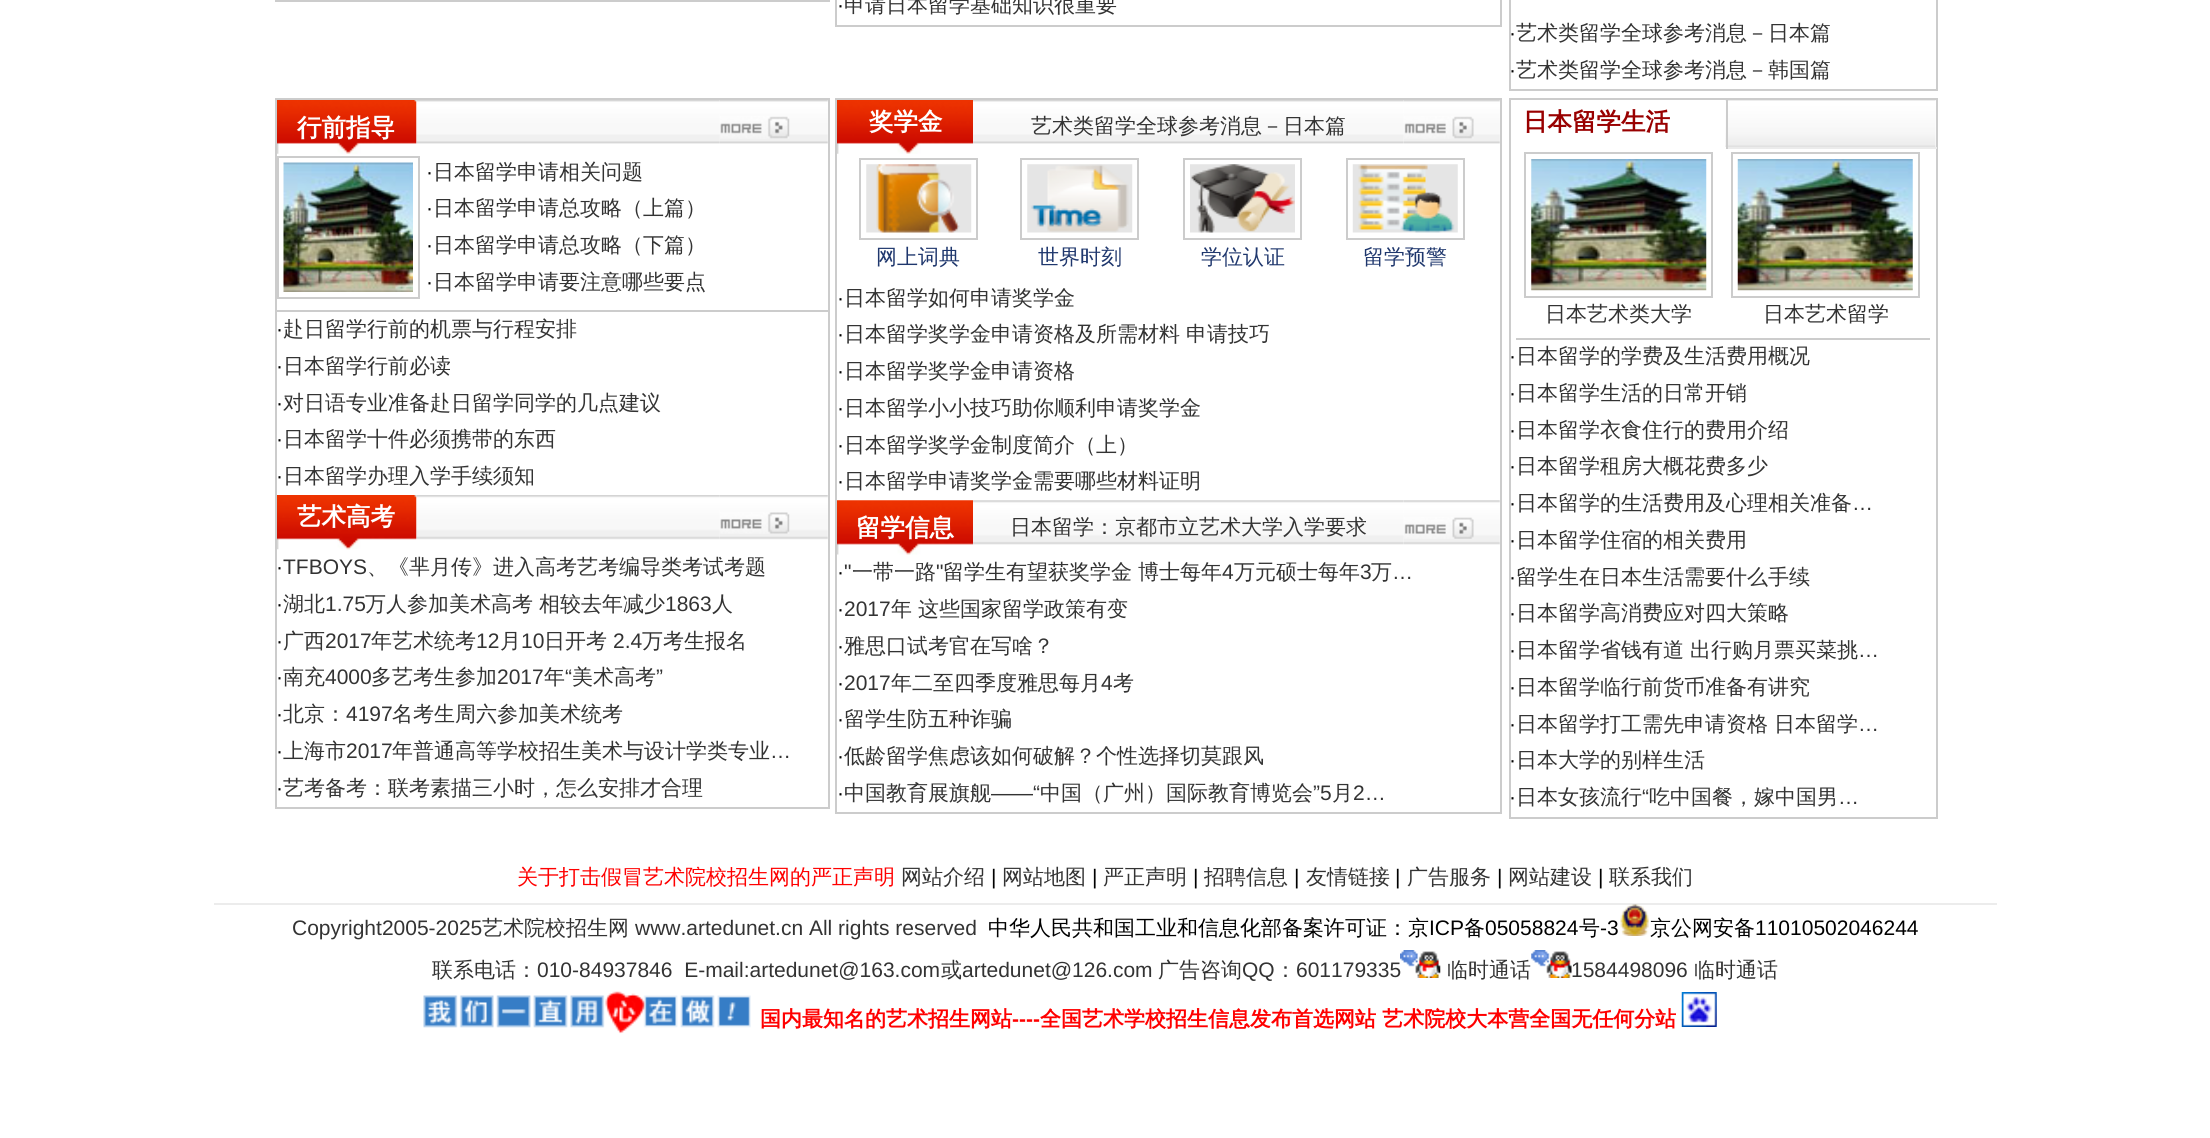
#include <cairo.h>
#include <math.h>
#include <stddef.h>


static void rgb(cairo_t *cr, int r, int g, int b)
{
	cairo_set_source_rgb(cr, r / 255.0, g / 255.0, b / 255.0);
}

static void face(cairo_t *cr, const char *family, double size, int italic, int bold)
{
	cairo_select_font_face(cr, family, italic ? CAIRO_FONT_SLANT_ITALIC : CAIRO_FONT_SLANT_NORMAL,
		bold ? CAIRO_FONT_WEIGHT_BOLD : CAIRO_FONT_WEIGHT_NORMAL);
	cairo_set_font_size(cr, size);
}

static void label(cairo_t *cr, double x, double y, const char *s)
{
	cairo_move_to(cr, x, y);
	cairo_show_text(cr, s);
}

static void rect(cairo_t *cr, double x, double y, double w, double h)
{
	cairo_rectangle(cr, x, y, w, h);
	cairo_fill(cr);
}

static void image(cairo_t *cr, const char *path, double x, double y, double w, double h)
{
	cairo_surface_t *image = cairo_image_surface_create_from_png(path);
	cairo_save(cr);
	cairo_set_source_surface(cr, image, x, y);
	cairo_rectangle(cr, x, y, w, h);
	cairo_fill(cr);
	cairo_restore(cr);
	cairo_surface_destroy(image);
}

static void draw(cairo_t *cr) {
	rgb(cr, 255, 255, 255);
	cairo_paint(cr);
	rgb(cr, 204, 204, 204);
	rect(cr, 275, 0, 555, 2);
	rect(cr, 1500, 0, 2, 26);
	rect(cr, 835, 25, 667, 2);
	rect(cr, 835, 0, 2, 26);
	face(cr, "Liberation Sans", 21, 0, 0);
	rgb(cr, 0, 0, 0);
	label(cr, 837, 12, "·");
	face(cr, "WenQuanYi Zen Hei Medium", 21, 0, 0);
	rgb(cr, 51, 51, 51);
	label(cr, 844, 12, "申请日本留学基础知识很重要");
	rgb(cr, 204, 204, 204);
	rect(cr, 1936, 0, 2, 91);
	rect(cr, 1509, 89, 428, 2);
	rect(cr, 1509, 0, 2, 91);
	face(cr, "Liberation Sans", 21, 0, 0);
	rgb(cr, 0, 0, 0);
	label(cr, 1509, 40, "·");
	face(cr, "WenQuanYi Zen Hei Medium", 21, 0, 0);
	rgb(cr, 51, 51, 51);
	label(cr, 1516, 40, "艺术类留学全球参考消息－日本篇");
	face(cr, "Liberation Sans", 21, 0, 0);
	rgb(cr, 0, 0, 0);
	label(cr, 1509, 77, "·");
	face(cr, "WenQuanYi Zen Hei Medium", 21, 0, 0);
	rgb(cr, 51, 51, 51);
	label(cr, 1516, 77, "艺术类留学全球参考消息－韩国篇");
	rgb(cr, 204, 204, 204);
	rect(cr, 275, 98, 555, 2);
	rect(cr, 828, 98, 2, 711);
	rect(cr, 275, 807, 555, 2);
	rect(cr, 275, 98, 2, 711);
	image(cr, "image0.png", 277, 100, 140, 54);
	face(cr, "WenQuanYi Zen Hei", 24.5, 0, 1);
	rgb(cr, 255, 255, 255);
	label(cr, 297, 136, "行前指导");
	image(cr, "image1.png", 416, 100, 304, 44);
	image(cr, "image2.png", 719, 100, 109, 44);
	image(cr, "image3.png", 720, 116, 70, 23);
	rgb(cr, 204, 204, 204);
	rect(cr, 277, 310, 551, 2);
	cairo_rectangle(cr, 278, 157, 141, 141);
	cairo_stroke(cr);
	image(cr, "image4.png", 283, 162, 130, 130);
	face(cr, "Liberation Sans", 21, 0, 0);
	rgb(cr, 0, 0, 0);
	label(cr, 426, 179, "·");
	face(cr, "WenQuanYi Zen Hei Medium", 21, 0, 0);
	rgb(cr, 51, 51, 51);
	label(cr, 433, 179, "日本留学申请相关问题");
	face(cr, "Liberation Sans", 21, 0, 0);
	rgb(cr, 0, 0, 0);
	label(cr, 426, 215, "·");
	face(cr, "WenQuanYi Zen Hei Medium", 21, 0, 0);
	rgb(cr, 51, 51, 51);
	label(cr, 433, 215, "日本留学申请总攻略（上篇）");
	face(cr, "Liberation Sans", 21, 0, 0);
	rgb(cr, 0, 0, 0);
	label(cr, 426, 252, "·");
	face(cr, "WenQuanYi Zen Hei Medium", 21, 0, 0);
	rgb(cr, 51, 51, 51);
	label(cr, 433, 252, "日本留学申请总攻略（下篇）");
	face(cr, "Liberation Sans", 21, 0, 0);
	rgb(cr, 0, 0, 0);
	label(cr, 426, 289, "·");
	face(cr, "WenQuanYi Zen Hei Medium", 21, 0, 0);
	rgb(cr, 51, 51, 51);
	label(cr, 433, 289, "日本留学申请要注意哪些要点");
	face(cr, "Liberation Sans", 21, 0, 0);
	rgb(cr, 0, 0, 0);
	label(cr, 276, 336, "·");
	face(cr, "WenQuanYi Zen Hei Medium", 21, 0, 0);
	rgb(cr, 51, 51, 51);
	label(cr, 283, 336, "赴日留学行前的机票与行程安排");
	face(cr, "Liberation Sans", 21, 0, 0);
	rgb(cr, 0, 0, 0);
	label(cr, 276, 373, "·");
	face(cr, "WenQuanYi Zen Hei Medium", 21, 0, 0);
	rgb(cr, 51, 51, 51);
	label(cr, 283, 373, "日本留学行前必读");
	face(cr, "Liberation Sans", 21, 0, 0);
	rgb(cr, 0, 0, 0);
	label(cr, 276, 410, "·");
	face(cr, "WenQuanYi Zen Hei Medium", 21, 0, 0);
	rgb(cr, 51, 51, 51);
	label(cr, 283, 410, "对日语专业准备赴日留学同学的几点建议");
	face(cr, "Liberation Sans", 21, 0, 0);
	rgb(cr, 0, 0, 0);
	label(cr, 276, 446, "·");
	face(cr, "WenQuanYi Zen Hei Medium", 21, 0, 0);
	rgb(cr, 51, 51, 51);
	label(cr, 283, 446, "日本留学十件必须携带的东西");
	face(cr, "Liberation Sans", 21, 0, 0);
	rgb(cr, 0, 0, 0);
	label(cr, 276, 483, "·");
	face(cr, "WenQuanYi Zen Hei Medium", 21, 0, 0);
	rgb(cr, 51, 51, 51);
	label(cr, 283, 483, "日本留学办理入学手续须知");
	image(cr, "image5.png", 277, 495, 140, 55);
	face(cr, "WenQuanYi Zen Hei", 24.5, 0, 1);
	rgb(cr, 255, 255, 255);
	label(cr, 297, 525, "艺术高考");
	image(cr, "image6.png", 416, 495, 304, 45);
	image(cr, "image7.png", 719, 495, 109, 45);
	image(cr, "image8.png", 720, 512, 70, 22);
	face(cr, "Liberation Sans", 21, 0, 0);
	rgb(cr, 0, 0, 0);
	label(cr, 276, 574, "·");
	rgb(cr, 51, 51, 51);
	label(cr, 283, 574, "TFBOYS");
	face(cr, "WenQuanYi Zen Hei Medium", 21, 0, 0);
	label(cr, 367, 574, "、《芈月传》进入高考艺考编导类考试考题");
	face(cr, "Liberation Sans", 21, 0, 0);
	rgb(cr, 0, 0, 0);
	label(cr, 276, 611, "·");
	face(cr, "WenQuanYi Zen Hei Medium", 21, 0, 0);
	rgb(cr, 51, 51, 51);
	label(cr, 283, 611, "湖北");
	face(cr, "Liberation Sans", 21, 0, 0);
	label(cr, 325, 611, "1.75");
	face(cr, "WenQuanYi Zen Hei Medium", 21, 0, 0);
	label(cr, 365, 611, "万人参加美术高考");
	label(cr, 539, 611, "相较去年减少");
	face(cr, "Liberation Sans", 21, 0, 0);
	label(cr, 665, 611, "1863");
	face(cr, "WenQuanYi Zen Hei Medium", 21, 0, 0);
	label(cr, 712, 611, "人");
	face(cr, "Liberation Sans", 21, 0, 0);
	rgb(cr, 0, 0, 0);
	label(cr, 276, 648, "·");
	face(cr, "WenQuanYi Zen Hei Medium", 21, 0, 0);
	rgb(cr, 51, 51, 51);
	label(cr, 283, 648, "广西");
	face(cr, "Liberation Sans", 21, 0, 0);
	label(cr, 325, 648, "2017");
	face(cr, "WenQuanYi Zen Hei Medium", 21, 0, 0);
	label(cr, 371, 648, "年艺术统考");
	face(cr, "Liberation Sans", 21, 0, 0);
	label(cr, 476, 648, "12");
	face(cr, "WenQuanYi Zen Hei Medium", 21, 0, 0);
	label(cr, 500, 648, "月");
	face(cr, "Liberation Sans", 21, 0, 0);
	label(cr, 521, 648, "10");
	face(cr, "WenQuanYi Zen Hei Medium", 21, 0, 0);
	label(cr, 544, 648, "日开考");
	face(cr, "Liberation Sans", 21, 0, 0);
	label(cr, 613, 648, "2.4");
	face(cr, "WenQuanYi Zen Hei Medium", 21, 0, 0);
	label(cr, 642, 648, "万考生报名");
	label(cr, 283, 684, "南充");
	face(cr, "Liberation Sans", 21, 0, 0);
	label(cr, 325, 684, "4000");
	face(cr, "WenQuanYi Zen Hei Medium", 21, 0, 0);
	label(cr, 371, 684, "多艺考生参加");
	face(cr, "Liberation Sans", 21, 0, 0);
	label(cr, 497, 684, "2017");
	face(cr, "WenQuanYi Zen Hei Medium", 21, 0, 0);
	label(cr, 544, 684, "年");
	face(cr, "Liberation Sans", 21, 0, 0);
	label(cr, 565, 684, "“");
	face(cr, "WenQuanYi Zen Hei Medium", 21, 0, 0);
	label(cr, 572, 684, "美术高考");
	face(cr, "Liberation Sans", 21, 0, 0);
	label(cr, 656, 684, "”");
	rgb(cr, 0, 0, 0);
	label(cr, 276, 684, "·");
	label(cr, 276, 721, "·");
	face(cr, "WenQuanYi Zen Hei Medium", 21, 0, 0);
	rgb(cr, 51, 51, 51);
	label(cr, 283, 721, "北京：");
	face(cr, "Liberation Sans", 21, 0, 0);
	label(cr, 346, 721, "4197");
	face(cr, "WenQuanYi Zen Hei Medium", 21, 0, 0);
	label(cr, 392, 721, "名考生周六参加美术统考");
	face(cr, "Liberation Sans", 21, 0, 0);
	rgb(cr, 0, 0, 0);
	label(cr, 276, 758, "·");
	face(cr, "WenQuanYi Zen Hei Medium", 21, 0, 0);
	rgb(cr, 51, 51, 51);
	label(cr, 283, 758, "上海市");
	face(cr, "Liberation Sans", 21, 0, 0);
	label(cr, 346, 758, "2017");
	face(cr, "WenQuanYi Zen Hei Medium", 21, 0, 0);
	label(cr, 392, 758, "年普通高等学校招生美术与设计学类专业");
	face(cr, "Liberation Sans", 21, 0, 0);
	label(cr, 770, 758, "…");
	rgb(cr, 0, 0, 0);
	label(cr, 276, 795, "·");
	face(cr, "WenQuanYi Zen Hei Medium", 21, 0, 0);
	rgb(cr, 51, 51, 51);
	label(cr, 283, 795, "艺考备考：联考素描三小时，怎么安排才合理");
	rgb(cr, 204, 204, 204);
	rect(cr, 835, 98, 667, 2);
	rect(cr, 1500, 98, 2, 716);
	rect(cr, 835, 812, 667, 2);
	rect(cr, 835, 98, 2, 716);
	image(cr, "image9.png", 837, 100, 136, 54);
	face(cr, "WenQuanYi Zen Hei", 24.5, 0, 1);
	rgb(cr, 255, 255, 255);
	label(cr, 869, 130, "奖学金");
	image(cr, "image10.png", 973, 100, 431, 44);
	face(cr, "WenQuanYi Zen Hei Medium", 21, 0, 0);
	rgb(cr, 51, 51, 51);
	label(cr, 1031, 133, "艺术类留学全球参考消息－日本篇");
	image(cr, "image11.png", 1403, 100, 97, 44);
	image(cr, "image12.png", 1404, 116, 70, 23);
	cairo_rectangle(cr, 860, 159, 117, 80);
	rgb(cr, 204, 204, 204);
	cairo_stroke(cr);
	image(cr, "image13.png", 866, 164, 106, 69);
	rgb(cr, 31, 55, 109);
	label(cr, 876, 264, "网上词典");
	cairo_rectangle(cr, 1021, 159, 117, 80);
	rgb(cr, 204, 204, 204);
	cairo_stroke(cr);
	image(cr, "image14.png", 1027, 164, 106, 69);
	rgb(cr, 31, 55, 109);
	label(cr, 1038, 264, "世界时刻");
	cairo_rectangle(cr, 1184, 159, 117, 80);
	rgb(cr, 204, 204, 204);
	cairo_stroke(cr);
	image(cr, "image15.png", 1190, 164, 105, 69);
	rgb(cr, 31, 55, 109);
	label(cr, 1201, 264, "学位认证");
	cairo_rectangle(cr, 1347, 159, 117, 80);
	rgb(cr, 204, 204, 204);
	cairo_stroke(cr);
	image(cr, "image16.png", 1352, 164, 106, 69);
	rgb(cr, 31, 55, 109);
	label(cr, 1363, 264, "留学预警");
	face(cr, "Liberation Sans", 21, 0, 0);
	rgb(cr, 0, 0, 0);
	label(cr, 837, 305, "·");
	face(cr, "WenQuanYi Zen Hei Medium", 21, 0, 0);
	rgb(cr, 51, 51, 51);
	label(cr, 844, 305, "日本留学如何申请奖学金");
	face(cr, "Liberation Sans", 21, 0, 0);
	rgb(cr, 0, 0, 0);
	label(cr, 837, 341, "·");
	face(cr, "WenQuanYi Zen Hei Medium", 21, 0, 0);
	rgb(cr, 51, 51, 51);
	label(cr, 844, 341, "日本留学奖学金申请资格及所需材料");
	label(cr, 1186, 341, "申请技巧");
	face(cr, "Liberation Sans", 21, 0, 0);
	rgb(cr, 0, 0, 0);
	label(cr, 837, 378, "·");
	face(cr, "WenQuanYi Zen Hei Medium", 21, 0, 0);
	rgb(cr, 51, 51, 51);
	label(cr, 844, 378, "日本留学奖学金申请资格");
	face(cr, "Liberation Sans", 21, 0, 0);
	rgb(cr, 0, 0, 0);
	label(cr, 837, 415, "·");
	face(cr, "WenQuanYi Zen Hei Medium", 21, 0, 0);
	rgb(cr, 51, 51, 51);
	label(cr, 844, 415, "日本留学小小技巧助你顺利申请奖学金");
	face(cr, "Liberation Sans", 21, 0, 0);
	rgb(cr, 0, 0, 0);
	label(cr, 837, 452, "·");
	face(cr, "WenQuanYi Zen Hei Medium", 21, 0, 0);
	rgb(cr, 51, 51, 51);
	label(cr, 844, 452, "日本留学奖学金制度简介（上）");
	face(cr, "Liberation Sans", 21, 0, 0);
	rgb(cr, 0, 0, 0);
	label(cr, 837, 488, "·");
	face(cr, "WenQuanYi Zen Hei Medium", 21, 0, 0);
	rgb(cr, 51, 51, 51);
	label(cr, 844, 488, "日本留学申请奖学金需要哪些材料证明");
	image(cr, "image17.png", 837, 500, 136, 55);
	face(cr, "WenQuanYi Zen Hei", 24.5, 0, 1);
	rgb(cr, 255, 255, 255);
	label(cr, 856, 536, "留学信息");
	image(cr, "image18.png", 973, 500, 431, 45);
	face(cr, "WenQuanYi Zen Hei Medium", 21, 0, 0);
	rgb(cr, 51, 51, 51);
	label(cr, 1010, 534, "日本留学：京都市立艺术大学入学要求");
	image(cr, "image19.png", 1403, 500, 97, 45);
	image(cr, "image20.png", 1404, 517, 70, 22);
	face(cr, "Liberation Sans", 21, 0, 0);
	rgb(cr, 0, 0, 0);
	label(cr, 837, 579, "·");
	rgb(cr, 51, 51, 51);
	label(cr, 844, 579, "\"");
	face(cr, "WenQuanYi Zen Hei Medium", 21, 0, 0);
	label(cr, 852, 579, "一带一路");
	face(cr, "Liberation Sans", 21, 0, 0);
	label(cr, 936, 579, "\"");
	face(cr, "WenQuanYi Zen Hei Medium", 21, 0, 0);
	label(cr, 943, 579, "留学生有望获奖学金");
	label(cr, 1138, 579, "博士每年");
	face(cr, "Liberation Sans", 21, 0, 0);
	label(cr, 1222, 579, "4");
	face(cr, "WenQuanYi Zen Hei Medium", 21, 0, 0);
	label(cr, 1234, 579, "万元硕士每年");
	face(cr, "Liberation Sans", 21, 0, 0);
	label(cr, 1360, 579, "3");
	face(cr, "WenQuanYi Zen Hei Medium", 21, 0, 0);
	label(cr, 1371, 579, "万");
	face(cr, "Liberation Sans", 21, 0, 0);
	label(cr, 1392, 579, "…");
	rgb(cr, 0, 0, 0);
	label(cr, 837, 616, "·");
	rgb(cr, 51, 51, 51);
	label(cr, 844, 616, "2017");
	face(cr, "WenQuanYi Zen Hei Medium", 21, 0, 0);
	label(cr, 891, 616, "年");
	label(cr, 918, 616, "这些国家留学政策有变");
	face(cr, "Liberation Sans", 21, 0, 0);
	rgb(cr, 0, 0, 0);
	label(cr, 837, 653, "·");
	face(cr, "WenQuanYi Zen Hei Medium", 21, 0, 0);
	rgb(cr, 51, 51, 51);
	label(cr, 844, 653, "雅思口试考官在写啥？");
	face(cr, "Liberation Sans", 21, 0, 0);
	rgb(cr, 0, 0, 0);
	label(cr, 837, 690, "·");
	rgb(cr, 51, 51, 51);
	label(cr, 844, 690, "2017");
	face(cr, "WenQuanYi Zen Hei Medium", 21, 0, 0);
	label(cr, 891, 690, "年二至四季度雅思每月");
	face(cr, "Liberation Sans", 21, 0, 0);
	label(cr, 1101, 690, "4");
	face(cr, "WenQuanYi Zen Hei Medium", 21, 0, 0);
	label(cr, 1113, 690, "考");
	face(cr, "Liberation Sans", 21, 0, 0);
	rgb(cr, 0, 0, 0);
	label(cr, 837, 726, "·");
	face(cr, "WenQuanYi Zen Hei Medium", 21, 0, 0);
	rgb(cr, 51, 51, 51);
	label(cr, 844, 726, "留学生防五种诈骗");
	face(cr, "Liberation Sans", 21, 0, 0);
	rgb(cr, 0, 0, 0);
	label(cr, 837, 763, "·");
	face(cr, "WenQuanYi Zen Hei Medium", 21, 0, 0);
	rgb(cr, 51, 51, 51);
	label(cr, 844, 763, "低龄留学焦虑该如何破解？个性选择切莫跟风");
	face(cr, "Liberation Sans", 21, 0, 0);
	rgb(cr, 0, 0, 0);
	label(cr, 837, 800, "·");
	face(cr, "WenQuanYi Zen Hei Medium", 21, 0, 0);
	rgb(cr, 51, 51, 51);
	label(cr, 844, 800, "中国教育展旗舰");
	face(cr, "Liberation Sans", 21, 0, 0);
	label(cr, 991, 800, "——“");
	face(cr, "WenQuanYi Zen Hei Medium", 21, 0, 0);
	label(cr, 1040, 800, "中国（广州）国际教育博览会");
	face(cr, "Liberation Sans", 21, 0, 0);
	label(cr, 1313, 800, "”5");
	face(cr, "WenQuanYi Zen Hei Medium", 21, 0, 0);
	label(cr, 1332, 800, "月");
	face(cr, "Liberation Sans", 21, 0, 0);
	label(cr, 1353, 800, "2…");
	rgb(cr, 204, 204, 204);
	rect(cr, 1509, 98, 428, 2);
	rect(cr, 1936, 98, 2, 721);
	rect(cr, 1509, 817, 428, 2);
	rect(cr, 1509, 98, 2, 721);
	face(cr, "WenQuanYi Zen Hei", 24.5, 0, 1);
	rgb(cr, 153, 0, 0);
	label(cr, 1523, 130, "日本留学生活");
	image(cr, "image21.png", 1725, 100, 211, 47);
	rgb(cr, 235, 235, 235);
	rect(cr, 1726, 147, 211, 2);
	rgb(cr, 204, 204, 204);
	rect(cr, 1726, 98, 2, 51);
	rect(cr, 1516, 338, 414, 2);
	cairo_rectangle(cr, 1525, 153, 187, 144);
	cairo_stroke(cr);
	image(cr, "image22.png", 1531, 159, 176, 132);
	face(cr, "WenQuanYi Zen Hei Medium", 21, 0, 0);
	rgb(cr, 51, 51, 51);
	label(cr, 1545, 321, "日本艺术类大学");
	cairo_rectangle(cr, 1732, 153, 187, 144);
	rgb(cr, 204, 204, 204);
	cairo_stroke(cr);
	image(cr, "image23.png", 1737, 159, 176, 132);
	rgb(cr, 51, 51, 51);
	label(cr, 1763, 321, "日本艺术留学");
	face(cr, "Liberation Sans", 21, 0, 0);
	rgb(cr, 0, 0, 0);
	label(cr, 1509, 363, "·");
	face(cr, "WenQuanYi Zen Hei Medium", 21, 0, 0);
	rgb(cr, 51, 51, 51);
	label(cr, 1516, 363, "日本留学的学费及生活费用概况");
	face(cr, "Liberation Sans", 21, 0, 0);
	rgb(cr, 0, 0, 0);
	label(cr, 1509, 400, "·");
	face(cr, "WenQuanYi Zen Hei Medium", 21, 0, 0);
	rgb(cr, 51, 51, 51);
	label(cr, 1516, 400, "日本留学生活的日常开销");
	face(cr, "Liberation Sans", 21, 0, 0);
	rgb(cr, 0, 0, 0);
	label(cr, 1509, 437, "·");
	face(cr, "WenQuanYi Zen Hei Medium", 21, 0, 0);
	rgb(cr, 51, 51, 51);
	label(cr, 1516, 437, "日本留学衣食住行的费用介绍");
	face(cr, "Liberation Sans", 21, 0, 0);
	rgb(cr, 0, 0, 0);
	label(cr, 1509, 473, "·");
	face(cr, "WenQuanYi Zen Hei Medium", 21, 0, 0);
	rgb(cr, 51, 51, 51);
	label(cr, 1516, 473, "日本留学租房大概花费多少");
	face(cr, "Liberation Sans", 21, 0, 0);
	rgb(cr, 0, 0, 0);
	label(cr, 1509, 510, "·");
	face(cr, "WenQuanYi Zen Hei Medium", 21, 0, 0);
	rgb(cr, 51, 51, 51);
	label(cr, 1516, 510, "日本留学的生活费用及心理相关准备");
	face(cr, "Liberation Sans", 21, 0, 0);
	label(cr, 1852, 510, "…");
	rgb(cr, 0, 0, 0);
	label(cr, 1509, 547, "·");
	face(cr, "WenQuanYi Zen Hei Medium", 21, 0, 0);
	rgb(cr, 51, 51, 51);
	label(cr, 1516, 547, "日本留学住宿的相关费用");
	face(cr, "Liberation Sans", 21, 0, 0);
	rgb(cr, 0, 0, 0);
	label(cr, 1509, 584, "·");
	face(cr, "WenQuanYi Zen Hei Medium", 21, 0, 0);
	rgb(cr, 51, 51, 51);
	label(cr, 1516, 584, "留学生在日本生活需要什么手续");
	face(cr, "Liberation Sans", 21, 0, 0);
	rgb(cr, 0, 0, 0);
	label(cr, 1509, 620, "·");
	face(cr, "WenQuanYi Zen Hei Medium", 21, 0, 0);
	rgb(cr, 51, 51, 51);
	label(cr, 1516, 620, "日本留学高消费应对四大策略");
	face(cr, "Liberation Sans", 21, 0, 0);
	rgb(cr, 0, 0, 0);
	label(cr, 1509, 657, "·");
	face(cr, "WenQuanYi Zen Hei Medium", 21, 0, 0);
	rgb(cr, 51, 51, 51);
	label(cr, 1516, 657, "日本留学省钱有道");
	label(cr, 1690, 657, "出行购月票买菜挑");
	face(cr, "Liberation Sans", 21, 0, 0);
	label(cr, 1858, 657, "…");
	rgb(cr, 0, 0, 0);
	label(cr, 1509, 694, "·");
	face(cr, "WenQuanYi Zen Hei Medium", 21, 0, 0);
	rgb(cr, 51, 51, 51);
	label(cr, 1516, 694, "日本留学临行前货币准备有讲究");
	face(cr, "Liberation Sans", 21, 0, 0);
	rgb(cr, 0, 0, 0);
	label(cr, 1509, 731, "·");
	face(cr, "WenQuanYi Zen Hei Medium", 21, 0, 0);
	rgb(cr, 51, 51, 51);
	label(cr, 1516, 731, "日本留学打工需先申请资格");
	label(cr, 1774, 731, "日本留学");
	face(cr, "Liberation Sans", 21, 0, 0);
	label(cr, 1858, 731, "…");
	rgb(cr, 0, 0, 0);
	label(cr, 1509, 767, "·");
	face(cr, "WenQuanYi Zen Hei Medium", 21, 0, 0);
	rgb(cr, 51, 51, 51);
	label(cr, 1516, 767, "日本大学的别样生活");
	label(cr, 1516, 804, "日本女孩流行");
	face(cr, "Liberation Sans", 21, 0, 0);
	label(cr, 1642, 804, "“");
	face(cr, "WenQuanYi Zen Hei Medium", 21, 0, 0);
	label(cr, 1649, 804, "吃中国餐，嫁中国男");
	face(cr, "Liberation Sans", 21, 0, 0);
	rgb(cr, 0, 0, 0);
	label(cr, 1509, 804, "·");
	rgb(cr, 51, 51, 51);
	label(cr, 1838, 804, "…");
	rgb(cr, 236, 236, 236);
	rect(cr, 214, 903, 1783, 2);
	face(cr, "WenQuanYi Zen Hei Medium", 21, 0, 0);
	rgb(cr, 255, 0, 0);
	label(cr, 517, 884, "关于打击假冒艺术院校招生网的严正声明");
	rgb(cr, 51, 51, 51);
	label(cr, 901, 884, "网站介绍");
	face(cr, "Liberation Sans", 21, 0, 0);
	rgb(cr, 0, 0, 0);
	label(cr, 991, 884, "|");
	face(cr, "WenQuanYi Zen Hei Medium", 21, 0, 0);
	rgb(cr, 51, 51, 51);
	label(cr, 1002, 884, "网站地图");
	face(cr, "Liberation Sans", 21, 0, 0);
	rgb(cr, 0, 0, 0);
	label(cr, 1092, 884, "|");
	face(cr, "WenQuanYi Zen Hei Medium", 21, 0, 0);
	rgb(cr, 51, 51, 51);
	label(cr, 1103, 884, "严正声明");
	face(cr, "Liberation Sans", 21, 0, 0);
	rgb(cr, 0, 0, 0);
	label(cr, 1193, 884, "|");
	face(cr, "WenQuanYi Zen Hei Medium", 21, 0, 0);
	rgb(cr, 51, 51, 51);
	label(cr, 1204, 884, "招聘信息");
	face(cr, "Liberation Sans", 21, 0, 0);
	rgb(cr, 0, 0, 0);
	label(cr, 1294, 884, "|");
	face(cr, "WenQuanYi Zen Hei Medium", 21, 0, 0);
	rgb(cr, 51, 51, 51);
	label(cr, 1306, 884, "友情链接");
	face(cr, "Liberation Sans", 21, 0, 0);
	rgb(cr, 0, 0, 0);
	label(cr, 1395, 884, "|");
	face(cr, "WenQuanYi Zen Hei Medium", 21, 0, 0);
	rgb(cr, 51, 51, 51);
	label(cr, 1407, 884, "广告服务");
	face(cr, "Liberation Sans", 21, 0, 0);
	rgb(cr, 0, 0, 0);
	label(cr, 1497, 884, "|");
	face(cr, "WenQuanYi Zen Hei Medium", 21, 0, 0);
	rgb(cr, 51, 51, 51);
	label(cr, 1508, 884, "网站建设");
	face(cr, "Liberation Sans", 21, 0, 0);
	rgb(cr, 0, 0, 0);
	label(cr, 1598, 884, "|");
	face(cr, "WenQuanYi Zen Hei Medium", 21, 0, 0);
	rgb(cr, 51, 51, 51);
	label(cr, 1609, 884, "联系我们");
	face(cr, "Liberation Sans", 21, 0, 0);
	label(cr, 292, 935, "Copyright2005-2025");
	face(cr, "WenQuanYi Zen Hei Medium", 21, 0, 0);
	label(cr, 482, 935, "艺术院校招生网");
	face(cr, "Liberation Sans", 21, 0, 0);
	label(cr, 635, 935, "www.artedunet.cn All rights reserved");
	face(cr, "WenQuanYi Zen Hei Medium", 21, 0, 0);
	rgb(cr, 0, 0, 0);
	label(cr, 988, 935, "中华人民共和国工业和信息化部备案许可证：京");
	face(cr, "Liberation Sans", 21, 0, 0);
	label(cr, 1429, 935, "ICP");
	face(cr, "WenQuanYi Zen Hei Medium", 21, 0, 0);
	label(cr, 1464, 935, "备");
	face(cr, "Liberation Sans", 21, 0, 0);
	label(cr, 1485, 935, "05058824");
	face(cr, "WenQuanYi Zen Hei Medium", 21, 0, 0);
	label(cr, 1579, 935, "号");
	face(cr, "Liberation Sans", 21, 0, 0);
	label(cr, 1600, 935, "-3");
	image(cr, "image24.png", 1620, 904, 29, 32);
	face(cr, "WenQuanYi Zen Hei Medium", 21, 0, 0);
	label(cr, 1650, 935, "京公网安备");
	face(cr, "Liberation Sans", 21, 0, 0);
	label(cr, 1755, 935, "11010502046244");
	face(cr, "WenQuanYi Zen Hei Medium", 21, 0, 0);
	rgb(cr, 51, 51, 51);
	label(cr, 432, 977, "联系电话：");
	face(cr, "Liberation Sans", 21, 0, 0);
	label(cr, 537, 977, "010-84937846  E-mail:artedunet@163.com");
	face(cr, "WenQuanYi Zen Hei Medium", 21, 0, 0);
	label(cr, 941, 977, "或");
	face(cr, "Liberation Sans", 21, 0, 0);
	label(cr, 962, 977, "artedunet@126.com");
	face(cr, "WenQuanYi Zen Hei Medium", 21, 0, 0);
	label(cr, 1158, 977, "广告咨询");
	face(cr, "Liberation Sans", 21, 0, 0);
	label(cr, 1242, 977, "QQ");
	face(cr, "WenQuanYi Zen Hei Medium", 21, 0, 0);
	label(cr, 1275, 977, "：");
	face(cr, "Liberation Sans", 21, 0, 0);
	label(cr, 1296, 977, "601179335");
	image(cr, "image25.png", 1400, 950, 41, 28);
	face(cr, "WenQuanYi Zen Hei Medium", 21, 0, 0);
	label(cr, 1447, 977, "临时通话");
	image(cr, "image26.png", 1531, 950, 41, 28);
	face(cr, "Liberation Sans", 21, 0, 0);
	label(cr, 1571, 977, "1584498096");
	face(cr, "WenQuanYi Zen Hei Medium", 21, 0, 0);
	label(cr, 1694, 977, "临时通话");
	image(cr, "image27.png", 423, 991, 328, 43);
	face(cr, "WenQuanYi Zen Hei", 21, 0, 1);
	rgb(cr, 255, 0, 0);
	label(cr, 760, 1026, "国内最知名的艺术招生网站");
	face(cr, "Liberation Sans", 21, 0, 1);
	label(cr, 1012, 1026, "----");
	face(cr, "WenQuanYi Zen Hei", 21, 0, 1);
	label(cr, 1040, 1026, "全国艺术学校招生信息发布首选网站 艺术院校大本营全国无任何分站");
	image(cr, "image28.png", 1681, 992, 36, 35);
}

int main(void) {
	cairo_surface_t *surface = cairo_image_surface_create(CAIRO_FORMAT_RGB24, 2210, 1138);
	cairo_t *cr = cairo_create(surface);
	cairo_font_options_t *options = cairo_font_options_create();
	cairo_font_options_set_hint_metrics(options, CAIRO_HINT_METRICS_OFF);
	cairo_font_options_set_hint_style(options, CAIRO_HINT_STYLE_NONE);
	cairo_set_font_options(cr, options);
	cairo_set_miter_limit(cr, 4);
	draw(cr);
	cairo_surface_write_to_png(surface, "render.png");
	cairo_font_options_destroy(options);
	cairo_destroy(cr);
	cairo_surface_destroy(surface);
	return 0;
}
